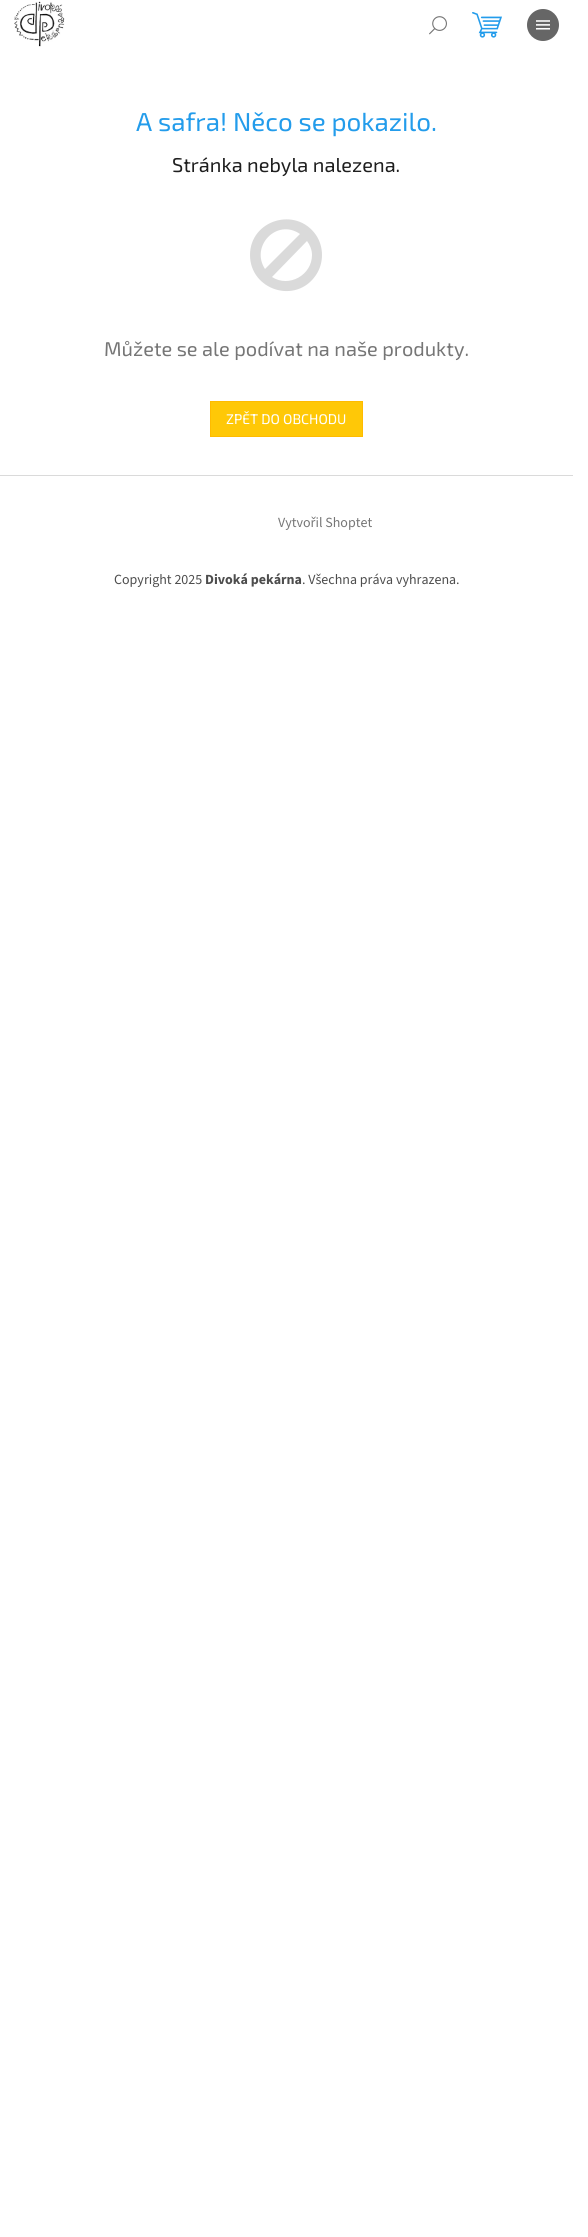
#include <cairo.h>
#include <math.h>
#include <stddef.h>


static void rgb(cairo_t *cr, int r, int g, int b)
{
	cairo_set_source_rgb(cr, r / 255.0, g / 255.0, b / 255.0);
}

static void face(cairo_t *cr, const char *family, double size, int italic, int bold)
{
	cairo_select_font_face(cr, family, italic ? CAIRO_FONT_SLANT_ITALIC : CAIRO_FONT_SLANT_NORMAL,
		bold ? CAIRO_FONT_WEIGHT_BOLD : CAIRO_FONT_WEIGHT_NORMAL);
	cairo_set_font_size(cr, size);
}

static void label(cairo_t *cr, double x, double y, const char *s)
{
	cairo_move_to(cr, x, y);
	cairo_show_text(cr, s);
}

static void rect(cairo_t *cr, double x, double y, double w, double h)
{
	cairo_rectangle(cr, x, y, w, h);
	cairo_fill(cr);
}

static void image(cairo_t *cr, const char *path, double x, double y, double w, double h)
{
	cairo_surface_t *image = cairo_image_surface_create_from_png(path);
	cairo_save(cr);
	cairo_set_source_surface(cr, image, x, y);
	cairo_rectangle(cr, x, y, w, h);
	cairo_fill(cr);
	cairo_restore(cr);
	cairo_surface_destroy(image);
}

static void draw(cairo_t *cr) {
	rgb(cr, 255, 255, 255);
	cairo_paint(cr);
	image(cr, "image0.png", 14, 1, 51, 46);
	image(cr, "image1.png", 472, 12, 30, 26);
	image(cr, "image2.png", 429, 16, 18, 19);
	rgb(cr, 102, 102, 102);
	cairo_arc(cr, 543, 25, 16, 0, 2 * M_PI);
	cairo_fill(cr);
	image(cr, "image3.png", 536, 20, 14, 10);
	face(cr, "Exo 2", 26, 0, 0);
	rgb(cr, 35, 156, 235);
	label(cr, 136, 131, "A safra! Něco se pokazilo.");
	face(cr, "Exo 2", 20, 0, 0);
	rgb(cr, 31, 31, 31);
	label(cr, 172, 172, "Stránka nebyla nalezena.");
	rgb(cr, 218, 218, 218);
	cairo_new_path(cr);
	cairo_move_to(cr, 312, 255);
	cairo_curve_to(cr, 312, 250, 310, 245, 307, 241);
	cairo_line_to(cr, 272, 277);
	cairo_curve_to(cr, 289, 288, 312, 275, 312, 255);
	cairo_close_path(cr);
	cairo_move_to(cr, 265, 269);
	cairo_line_to(cr, 300, 234);
	cairo_curve_to(cr, 277, 218, 250, 246, 265, 269);
	cairo_close_path(cr);
	cairo_move_to(cr, 322, 255);
	cairo_curve_to(cr, 322, 262, 320, 269, 316, 275);
	cairo_curve_to(cr, 296, 305, 250, 290, 250, 255);
	cairo_curve_to(cr, 250, 220, 296, 206, 316, 235);
	cairo_curve_to(cr, 320, 241, 322, 248, 322, 255);
	cairo_close_path(cr);
	cairo_fill(cr);
	rgb(cr, 118, 118, 118);
	label(cr, 104, 356, "Můžete se ale podívat na naše produkty.");
	rgb(cr, 255, 200, 7);
	cairo_rectangle(cr, 210.5, 401.5, 152, 35);
	cairo_fill_preserve(cr);
	rgb(cr, 255, 187, 0);
	cairo_set_line_width(cr, 1);
	cairo_stroke(cr);
	face(cr, "Exo 2", 14, 0, 0);
	rgb(cr, 255, 255, 255);
	label(cr, 226, 424, "ZPĚT DO OBCHODU");
	rgb(cr, 218, 218, 218);
	rect(cr, 0, 475, 573, 1);
	face(cr, "Source Sans 3", 14, 0, 0);
	rgb(cr, 118, 118, 118);
	label(cr, 278, 527, "Vytvořil Shoptet");
	rgb(cr, 77, 77, 77);
	label(cr, 114, 584, "Copyright 2025");
	face(cr, "Source Sans 3", 14, 0, 1);
	label(cr, 205, 584, "Divoká pekárna");
	face(cr, "Source Sans 3", 14, 0, 0);
	label(cr, 302, 584, ". Všechna práva vyhrazena.");
}

int main(void) {
	cairo_surface_t *surface = cairo_image_surface_create(CAIRO_FORMAT_RGB24, 588, 2237);
	cairo_t *cr = cairo_create(surface);
	cairo_font_options_t *options = cairo_font_options_create();
	cairo_font_options_set_hint_metrics(options, CAIRO_HINT_METRICS_OFF);
	cairo_font_options_set_hint_style(options, CAIRO_HINT_STYLE_NONE);
	cairo_set_font_options(cr, options);
	cairo_set_miter_limit(cr, 4);
	draw(cr);
	cairo_surface_write_to_png(surface, "render.png");
	cairo_font_options_destroy(options);
	cairo_destroy(cr);
	cairo_surface_destroy(surface);
	return 0;
}
